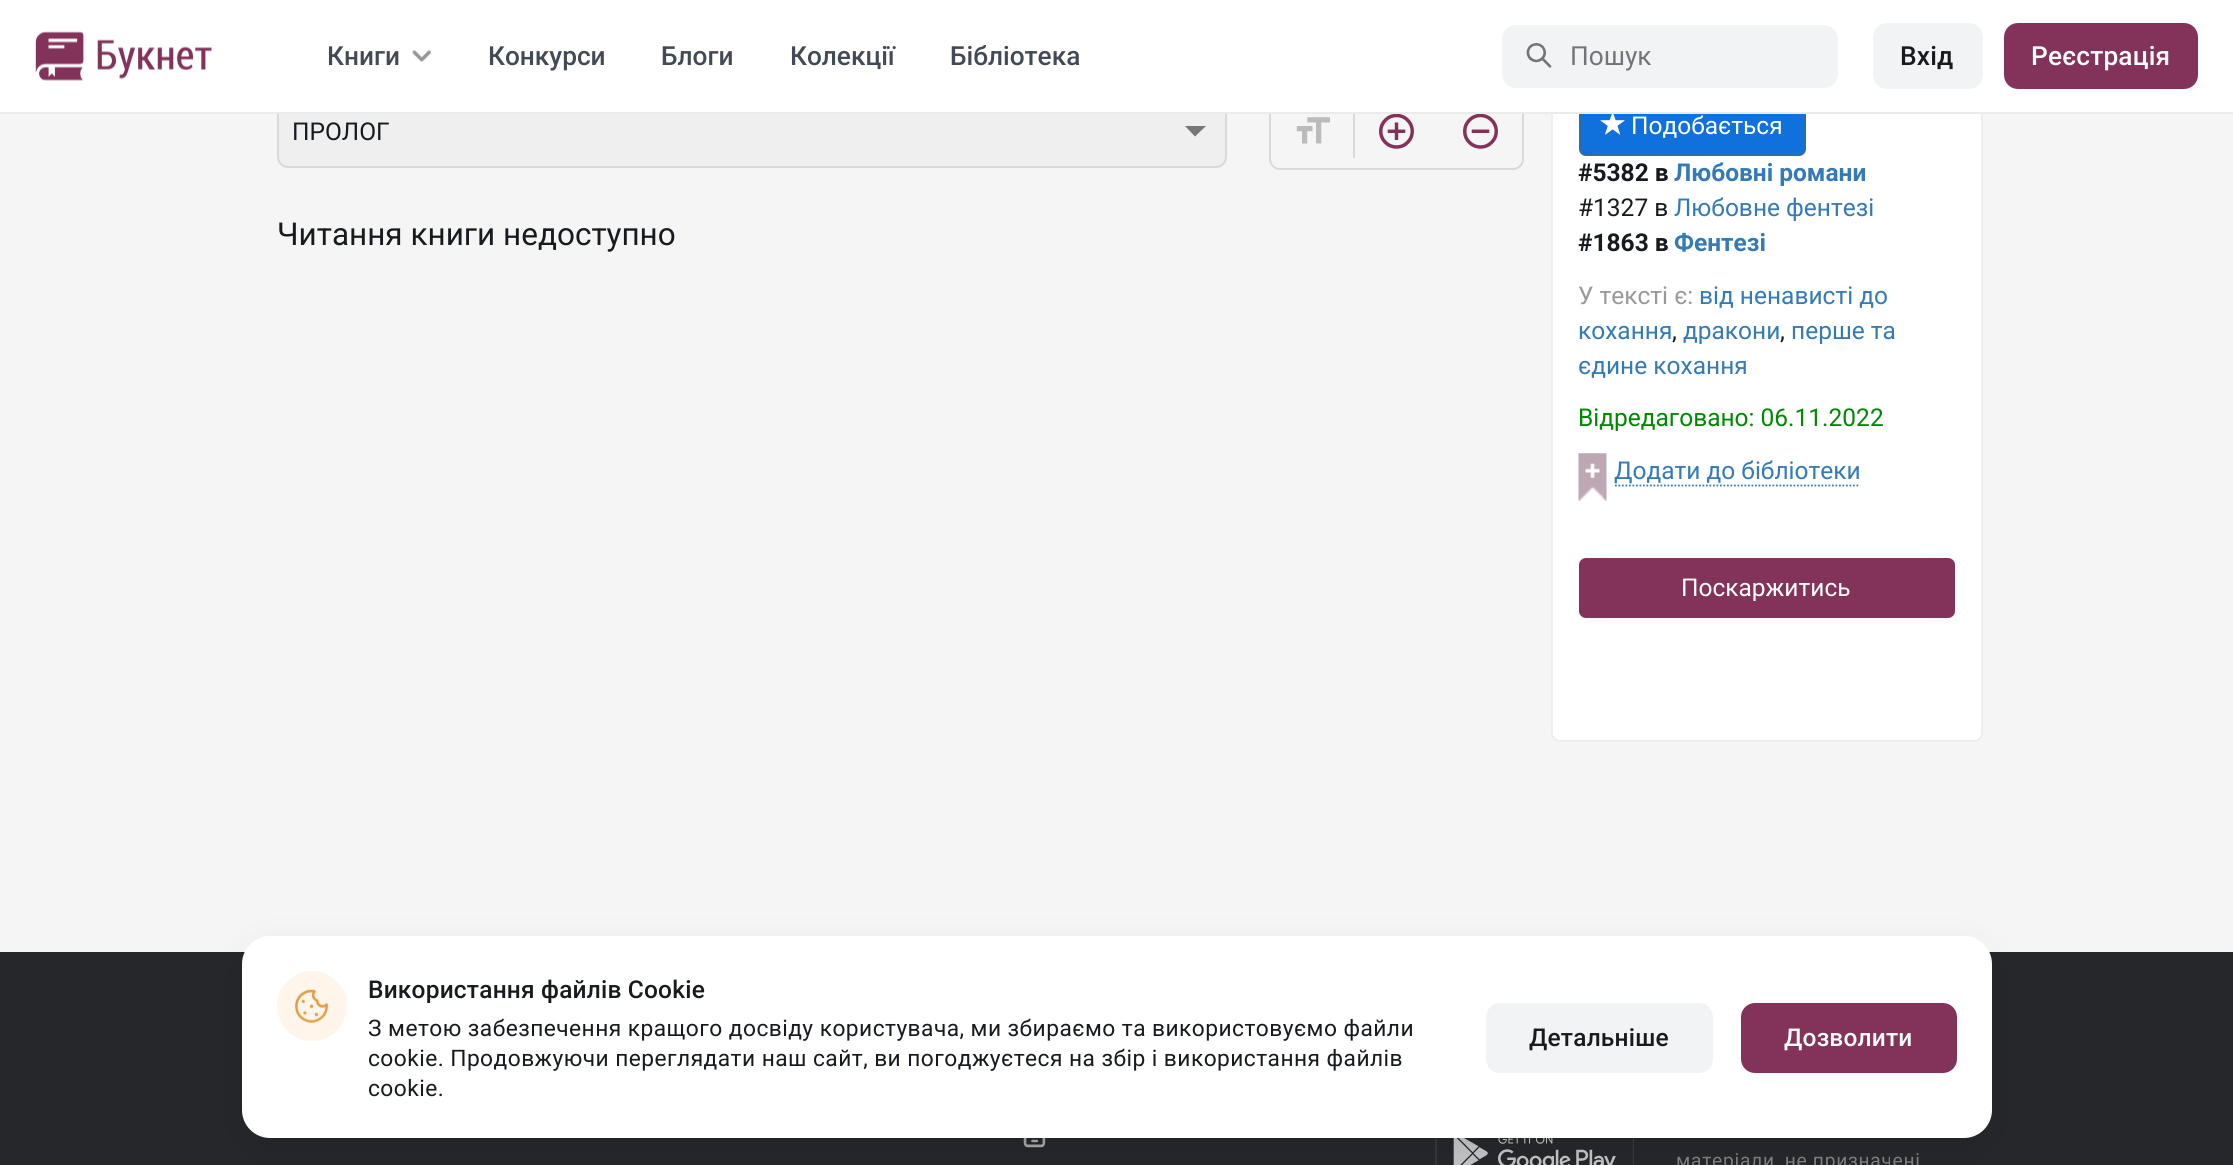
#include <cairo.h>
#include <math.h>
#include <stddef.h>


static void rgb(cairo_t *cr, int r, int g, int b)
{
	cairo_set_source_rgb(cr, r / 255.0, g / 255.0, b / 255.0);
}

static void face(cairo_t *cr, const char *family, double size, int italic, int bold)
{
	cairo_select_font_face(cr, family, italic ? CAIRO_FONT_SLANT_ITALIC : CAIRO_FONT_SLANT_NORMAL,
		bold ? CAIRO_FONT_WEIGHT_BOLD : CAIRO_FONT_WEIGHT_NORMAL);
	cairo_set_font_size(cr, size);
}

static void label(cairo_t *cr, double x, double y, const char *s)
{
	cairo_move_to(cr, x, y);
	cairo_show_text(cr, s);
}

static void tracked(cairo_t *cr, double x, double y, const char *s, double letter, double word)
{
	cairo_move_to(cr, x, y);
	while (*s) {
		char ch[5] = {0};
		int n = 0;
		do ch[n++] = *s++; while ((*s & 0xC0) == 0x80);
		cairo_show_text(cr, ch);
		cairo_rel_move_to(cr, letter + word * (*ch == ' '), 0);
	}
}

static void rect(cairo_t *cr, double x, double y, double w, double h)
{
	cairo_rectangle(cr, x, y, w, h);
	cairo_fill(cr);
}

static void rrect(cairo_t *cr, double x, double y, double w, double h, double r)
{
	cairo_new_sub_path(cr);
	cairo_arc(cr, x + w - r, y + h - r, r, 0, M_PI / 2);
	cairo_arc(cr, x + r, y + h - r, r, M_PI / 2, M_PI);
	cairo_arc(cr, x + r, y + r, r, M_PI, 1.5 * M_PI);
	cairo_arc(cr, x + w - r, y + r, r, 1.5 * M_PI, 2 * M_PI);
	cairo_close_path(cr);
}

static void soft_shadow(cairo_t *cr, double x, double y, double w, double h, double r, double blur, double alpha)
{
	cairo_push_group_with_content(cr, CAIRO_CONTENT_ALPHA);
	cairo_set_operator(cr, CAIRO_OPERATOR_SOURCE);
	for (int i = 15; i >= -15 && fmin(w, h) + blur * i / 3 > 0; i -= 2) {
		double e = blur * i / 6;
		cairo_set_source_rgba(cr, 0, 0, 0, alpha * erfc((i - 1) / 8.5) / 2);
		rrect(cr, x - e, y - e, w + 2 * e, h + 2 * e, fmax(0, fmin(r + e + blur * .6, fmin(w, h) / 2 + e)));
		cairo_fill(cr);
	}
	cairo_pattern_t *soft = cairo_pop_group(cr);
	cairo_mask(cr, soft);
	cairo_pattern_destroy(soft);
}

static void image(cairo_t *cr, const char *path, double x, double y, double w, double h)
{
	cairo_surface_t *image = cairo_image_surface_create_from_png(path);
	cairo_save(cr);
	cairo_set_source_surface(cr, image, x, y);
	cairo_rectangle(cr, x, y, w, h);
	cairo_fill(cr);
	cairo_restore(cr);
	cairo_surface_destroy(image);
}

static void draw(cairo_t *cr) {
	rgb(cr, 245, 245, 245);
	cairo_paint(cr);
	rgb(cr, 239, 239, 239);
	rrect(cr, 278, 96, 948, 71, 10);
	cairo_fill_preserve(cr);
	rgb(cr, 217, 217, 217);
	cairo_stroke(cr);
	rrect(cr, 1270, 94, 253, 75, 10);
	cairo_stroke(cr);
	rgb(cr, 255, 255, 255);
	rrect(cr, 1552, -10, 430, 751, 8);
	cairo_fill_preserve(cr);
	rgb(cr, 238, 238, 238);
	cairo_stroke(cr);
	rgb(cr, 16, 112, 220);
	rrect(cr, 1580, 97, 225, 58, 6);
	cairo_fill_preserve(cr);
	rgb(cr, 46, 109, 164);
	cairo_stroke(cr);
	rgb(cr, 255, 255, 255);
	rect(cr, 0, 0, 2233, 112);
	rgb(cr, 235, 235, 235);
	rect(cr, 0, 112, 2233, 2);
	image(cr, "image0.png", 35, 31, 177, 50);
	face(cr, "Roboto Medium", 26.25, 0, 0);
	rgb(cr, 66, 73, 87);
	label(cr, 327, 65, "Книги");
	image(cr, "image1.png", 412, 50, 19, 12);
	label(cr, 488, 65, "Конкурси");
	label(cr, 661, 65, "Блоги");
	label(cr, 790, 65, "Колекції");
	label(cr, 950, 65, "Бібліотека");
	rgb(cr, 242, 243, 245);
	rrect(cr, 1502, 25, 336, 63, 14);
	cairo_fill(cr);
	image(cr, "image2.png", 1526, 43, 26, 25);
	face(cr, "Roboto", 26.25, 0, 0);
	rgb(cr, 113, 116, 122);
	label(cr, 1570, 65, "Пошук");
	rgb(cr, 242, 243, 245);
	rrect(cr, 1873, 23, 110, 66, 14);
	cairo_fill(cr);
	face(cr, "Roboto Medium", 26.25, 0, 0);
	rgb(cr, 23, 26, 31);
	tracked(cr, 1900, 65, "Вхід", 0.2, 0);
	rgb(cr, 131, 50, 90);
	rrect(cr, 2004, 23, 194, 66, 14);
	cairo_fill(cr);
	rgb(cr, 255, 255, 255);
	tracked(cr, 2031, 65, "Реєстрація", 0.2, 0);
	face(cr, "Roboto", 24.5, 0, 0);
	rgb(cr, 23, 26, 31);
	label(cr, 292, 140, "ПРОЛОГ");
	rgb(cr, 119, 119, 119);
	cairo_new_path(cr);
	cairo_move_to(cr, 1185, 126);
	cairo_line_to(cr, 1206, 126);
	cairo_line_to(cr, 1195, 136.5);
	cairo_close_path(cr);
	cairo_fill(cr);
	image(cr, "image3.png", 1296, 117, 34, 27);
	rgb(cr, 217, 217, 217);
	rect(cr, 1353, 114, 2, 44);
	image(cr, "image4.png", 1379, 114, 35, 35);
	image(cr, "image5.png", 1463, 114, 35, 35);
	face(cr, "Roboto", 31.5, 0, 0);
	rgb(cr, 23, 26, 31);
	label(cr, 277, 245, "Читання книги недоступно");
	image(cr, "image6.png", 1600, 114, 25, 21);
	face(cr, "Roboto", 24.5, 0, 0);
	rgb(cr, 255, 255, 255);
	label(cr, 1631, 134, "Подобається");
	face(cr, "Roboto", 24.5, 0, 1);
	rgb(cr, 23, 26, 31);
	label(cr, 1578, 181, "#5382 в");
	rgb(cr, 51, 122, 183);
	label(cr, 1674, 181, "Любовні романи");
	face(cr, "Roboto", 24.5, 0, 0);
	rgb(cr, 23, 26, 31);
	label(cr, 1578, 216, "#1327 в");
	rgb(cr, 51, 122, 183);
	label(cr, 1674, 216, "Любовне фентезі");
	face(cr, "Roboto", 24.5, 0, 1);
	rgb(cr, 23, 26, 31);
	label(cr, 1578, 251, "#1863 в");
	rgb(cr, 51, 122, 183);
	label(cr, 1674, 251, "Фентезі");
	face(cr, "Roboto", 24.5, 0, 0);
	rgb(cr, 153, 153, 153);
	label(cr, 1578, 304, "У тексті є:");
	rgb(cr, 51, 122, 183);
	label(cr, 1699, 304, "від ненависті до");
	label(cr, 1578, 339, "кохання");
	rgb(cr, 23, 26, 31);
	label(cr, 1672, 339, ",");
	rgb(cr, 51, 122, 183);
	label(cr, 1683, 339, "дракони");
	rgb(cr, 23, 26, 31);
	label(cr, 1780, 339, ",");
	rgb(cr, 51, 122, 183);
	label(cr, 1791, 339, "перше та");
	label(cr, 1578, 374, "єдине кохання");
	rgb(cr, 0, 136, 0);
	label(cr, 1578, 426, "Відредаговано: 06.11.2022");
	image(cr, "image7.png", 1578, 453, 29, 48);
	rgb(cr, 51, 122, 183);
	label(cr, 1614, 479, "Додати до бібліотеки");
	cairo_new_path(cr);
	cairo_move_to(cr, 1615, 485.5);
	cairo_line_to(cr, 1860, 485.5);
	cairo_set_line_width(cr, 1.8);
	cairo_set_dash(cr, (double[]){1.75, 1.75}, 2, 0);
	cairo_stroke(cr);
	rgb(cr, 131, 50, 90);
	rrect(cr, 1579, 558, 376, 60, 7);
	cairo_fill(cr);
	rgb(cr, 255, 255, 255);
	label(cr, 1681, 596, "Поскаржитись");
	rgb(cr, 37, 39, 42);
	rect(cr, 0, 952, 2233, 213);
	image(cr, "image9.png", 1023, 1138, 23, 10);
	image(cr, "image10.png", 1435, 1138, 199, 27);
	rgb(cr, 0, 0, 0);
	soft_shadow(cr, 252, 961, 1729, 180, 18, 24.5, 0.12);
	rgb(cr, 255, 255, 255);
	rrect(cr, 242, 936, 1750, 202, 28);
	cairo_fill(cr);
	rgb(cr, 255, 245, 234);
	cairo_arc(cr, 312, 1006, 35, 0, 2 * M_PI);
	cairo_fill(cr);
	image(cr, "image8.png", 295, 989, 33, 34);
	face(cr, "Roboto Medium", 24.5, 0, 0);
	rgb(cr, 23, 26, 31);
	tracked(cr, 368, 998, "Використання файлів Cookie", 0.2, 0);
	face(cr, "Roboto", 22.75, 0, 0);
	tracked(cr, 368, 1036, "З метою забезпечення кращого досвіду користувача, ми збираємо та використовуємо файли", 0.45, 0);
	tracked(cr, 368, 1066, "cookie. Продовжуючи переглядати наш сайт, ви погоджуєтеся на збір і використання файлів", 0.45, 0);
	tracked(cr, 368, 1096, "cookie.", 0.45, 0);
	rgb(cr, 242, 243, 245);
	rrect(cr, 1486, 1003, 227, 70, 14);
	cairo_fill(cr);
	face(cr, "Roboto Medium", 24.5, 0, 0);
	rgb(cr, 23, 26, 31);
	tracked(cr, 1529, 1046, "Детальніше", 0.2, 0);
	rgb(cr, 131, 50, 90);
	rrect(cr, 1741, 1003, 216, 70, 14);
	cairo_fill(cr);
	rgb(cr, 255, 255, 255);
	tracked(cr, 1784, 1046, "Дозволити", 0.2, 0);
	face(cr, "Roboto", 19.25, 0, 0);
	rgb(cr, 125, 125, 125);
	tracked(cr, 1676, 1167, "матеріали, не призначені", 0.7, 0);
}

int main(void) {
	cairo_surface_t *surface = cairo_image_surface_create(CAIRO_FORMAT_RGB24, 2233, 1165);
	cairo_t *cr = cairo_create(surface);
	cairo_font_options_t *options = cairo_font_options_create();
	cairo_font_options_set_hint_metrics(options, CAIRO_HINT_METRICS_OFF);
	cairo_font_options_set_hint_style(options, CAIRO_HINT_STYLE_NONE);
	cairo_set_font_options(cr, options);
	cairo_set_miter_limit(cr, 4);
	draw(cr);
	cairo_surface_write_to_png(surface, "render.png");
	cairo_font_options_destroy(options);
	cairo_destroy(cr);
	cairo_surface_destroy(surface);
	return 0;
}
